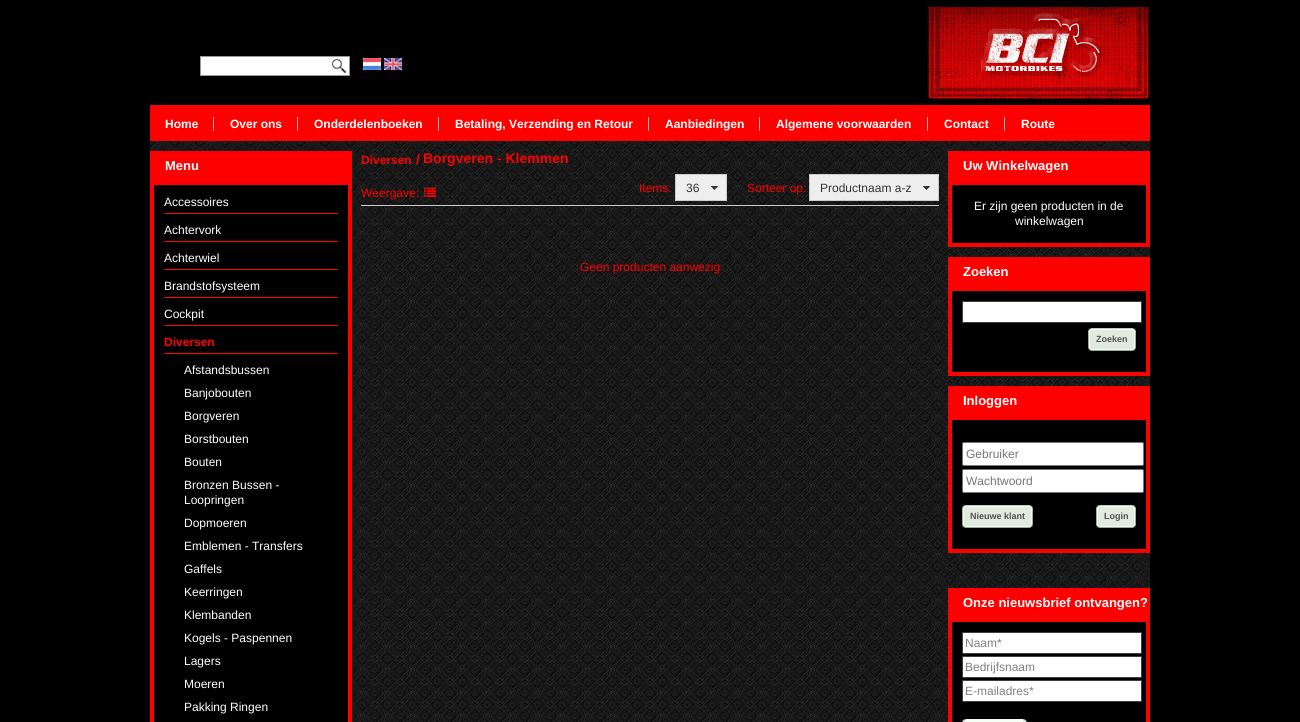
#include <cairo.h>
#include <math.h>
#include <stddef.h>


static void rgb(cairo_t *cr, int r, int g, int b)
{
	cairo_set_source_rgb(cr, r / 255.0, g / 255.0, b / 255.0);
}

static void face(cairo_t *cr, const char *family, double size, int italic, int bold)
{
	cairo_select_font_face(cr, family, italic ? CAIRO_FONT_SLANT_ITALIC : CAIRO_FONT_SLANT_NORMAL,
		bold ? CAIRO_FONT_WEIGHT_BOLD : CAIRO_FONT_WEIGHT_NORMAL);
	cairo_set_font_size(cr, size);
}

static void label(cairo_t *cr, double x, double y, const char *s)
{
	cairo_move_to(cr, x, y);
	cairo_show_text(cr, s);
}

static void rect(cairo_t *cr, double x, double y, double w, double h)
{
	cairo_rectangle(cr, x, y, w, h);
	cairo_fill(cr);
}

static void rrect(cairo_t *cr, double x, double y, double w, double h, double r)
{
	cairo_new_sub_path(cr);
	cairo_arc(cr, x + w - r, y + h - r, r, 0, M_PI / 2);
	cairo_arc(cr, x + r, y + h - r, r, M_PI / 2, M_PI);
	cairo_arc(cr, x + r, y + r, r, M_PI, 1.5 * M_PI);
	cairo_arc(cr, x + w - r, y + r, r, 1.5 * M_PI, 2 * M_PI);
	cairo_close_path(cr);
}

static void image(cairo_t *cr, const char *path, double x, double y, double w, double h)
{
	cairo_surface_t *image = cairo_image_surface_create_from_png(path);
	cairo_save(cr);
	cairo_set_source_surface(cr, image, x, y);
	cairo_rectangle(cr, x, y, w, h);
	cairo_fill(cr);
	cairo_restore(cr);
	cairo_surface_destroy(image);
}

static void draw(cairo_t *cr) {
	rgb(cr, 0, 0, 0);
	cairo_paint(cr);
	rgb(cr, 255, 255, 255);
	rect(cr, 201, 57, 148, 18);
	image(cr, "image0.png", 332, 59, 14, 14);
	cairo_rectangle(cr, 200.5, 56.5, 149, 19);
	rgb(cr, 153, 153, 153);
	cairo_set_line_width(cr, 1);
	cairo_stroke(cr);
	image(cr, "image1.png", 363, 58, 18, 12);
	image(cr, "image2.png", 384, 58, 18, 12);
	image(cr, "image3.png", 927, 0, 223, 104);
	rgb(cr, 255, 0, 0);
	rect(cr, 150, 105, 1000, 36);
	face(cr, "Liberation Sans", 12, 0, 1);
	rgb(cr, 255, 255, 255);
	label(cr, 165, 128, "Home");
	rgb(cr, 187, 187, 187);
	rect(cr, 213, 117, 1, 14);
	rgb(cr, 255, 255, 255);
	label(cr, 230, 128, "Over ons");
	rgb(cr, 187, 187, 187);
	rect(cr, 297, 117, 1, 14);
	rgb(cr, 255, 255, 255);
	label(cr, 314, 128, "Onderdelenboeken");
	rgb(cr, 187, 187, 187);
	rect(cr, 438, 117, 1, 14);
	rgb(cr, 255, 255, 255);
	label(cr, 455, 128, "Betaling, Verzending en Retour");
	rgb(cr, 187, 187, 187);
	rect(cr, 648, 117, 1, 14);
	rgb(cr, 255, 255, 255);
	label(cr, 665, 128, "Aanbiedingen");
	rgb(cr, 187, 187, 187);
	rect(cr, 759, 117, 1, 14);
	rgb(cr, 255, 255, 255);
	label(cr, 776, 128, "Algemene voorwaarden");
	rgb(cr, 187, 187, 187);
	rect(cr, 927, 117, 1, 14);
	rgb(cr, 255, 255, 255);
	label(cr, 944, 128, "Contact");
	rgb(cr, 187, 187, 187);
	rect(cr, 1004, 117, 1, 14);
	rgb(cr, 255, 255, 255);
	label(cr, 1021, 128, "Route");
	image(cr, "image4.png", 150, 141, 1000, 581);
	rgb(cr, 255, 0, 0);
	rect(cr, 150, 151, 202, 30);
	face(cr, "Liberation Sans", 13, 0, 1);
	rgb(cr, 255, 255, 255);
	label(cr, 165, 170, "Menu");
	rgb(cr, 0, 0, 0);
	cairo_rectangle(cr, 152, 183, 198, 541);
	cairo_fill_preserve(cr);
	rgb(cr, 255, 0, 0);
	cairo_set_line_width(cr, 4);
	cairo_stroke(cr);
	rect(cr, 164, 213, 174, 1);
	face(cr, "Liberation Sans", 12, 0, 0);
	rgb(cr, 255, 255, 255);
	label(cr, 164, 206, "Accessoires");
	rgb(cr, 255, 0, 0);
	rect(cr, 164, 241, 174, 1);
	rgb(cr, 255, 255, 255);
	label(cr, 164, 234, "Achtervork");
	rgb(cr, 255, 0, 0);
	rect(cr, 164, 269, 174, 1);
	rgb(cr, 255, 255, 255);
	label(cr, 164, 262, "Achterwiel");
	rgb(cr, 255, 0, 0);
	rect(cr, 164, 297, 174, 1);
	rgb(cr, 255, 255, 255);
	label(cr, 164, 290, "Brandstofsysteem");
	rgb(cr, 255, 0, 0);
	rect(cr, 164, 325, 174, 1);
	rgb(cr, 255, 255, 255);
	label(cr, 164, 318, "Cockpit");
	rgb(cr, 255, 0, 0);
	rect(cr, 164, 353, 174, 1);
	face(cr, "Liberation Sans", 12, 0, 1);
	label(cr, 164, 346, "Diversen");
	face(cr, "Liberation Sans", 12, 0, 0);
	rgb(cr, 255, 255, 255);
	label(cr, 184, 374, "Afstandsbussen");
	label(cr, 184, 397, "Banjobouten");
	label(cr, 184, 420, "Borgveren");
	label(cr, 184, 443, "Borstbouten");
	label(cr, 184, 466, "Bouten");
	label(cr, 184, 489, "Bronzen Bussen -");
	label(cr, 184, 504, "Loopringen");
	label(cr, 184, 527, "Dopmoeren");
	label(cr, 184, 550, "Emblemen - Transfers");
	label(cr, 184, 573, "Gaffels");
	label(cr, 184, 596, "Keerringen");
	label(cr, 184, 619, "Klembanden");
	label(cr, 184, 642, "Kogels - Paspennen");
	label(cr, 184, 665, "Lagers");
	label(cr, 184, 688, "Moeren");
	label(cr, 184, 711, "Pakking Ringen");
	face(cr, "Liberation Sans", 12, 0, 1);
	rgb(cr, 255, 0, 0);
	label(cr, 361, 164, "Diversen");
	face(cr, "Liberation Sans", 14, 0, 1);
	label(cr, 416, 164, "/");
	label(cr, 423, 163, "Borgveren - Klemmen");
	rgb(cr, 204, 204, 204);
	rect(cr, 361, 205, 578, 1);
	face(cr, "Liberation Sans", 12, 0, 0);
	rgb(cr, 255, 0, 0);
	label(cr, 361, 197, "Weergave:");
	image(cr, "image5.png", 424, 187, 12, 10);
	label(cr, 639, 192, "Items:");
	rgb(cr, 238, 238, 238);
	cairo_rectangle(cr, 675.5, 174.5, 51, 26);
	cairo_fill_preserve(cr);
	rgb(cr, 204, 204, 204);
	cairo_set_line_width(cr, 1);
	cairo_stroke(cr);
	rgb(cr, 51, 51, 51);
	label(cr, 686, 192, "36");
	image(cr, "image6.png", 711, 186, 7, 4);
	rgb(cr, 255, 0, 0);
	label(cr, 747, 192, "Sorteer op:");
	rgb(cr, 238, 238, 238);
	cairo_rectangle(cr, 809.5, 174.5, 129, 26);
	cairo_fill_preserve(cr);
	rgb(cr, 204, 204, 204);
	cairo_stroke(cr);
	rgb(cr, 51, 51, 51);
	label(cr, 820, 192, "Productnaam a-z");
	image(cr, "image6.png", 923, 186, 7, 4);
	rgb(cr, 255, 0, 0);
	label(cr, 580, 271, "Geen producten aanwezig");
	rect(cr, 948, 151, 202, 30);
	face(cr, "Liberation Sans", 13, 0, 1);
	rgb(cr, 255, 255, 255);
	label(cr, 963, 170, "Uw Winkelwagen");
	rgb(cr, 0, 0, 0);
	cairo_rectangle(cr, 950, 183, 198, 62);
	cairo_fill_preserve(cr);
	rgb(cr, 255, 0, 0);
	cairo_set_line_width(cr, 4);
	cairo_stroke(cr);
	face(cr, "Liberation Sans", 12, 0, 0);
	rgb(cr, 255, 255, 255);
	label(cr, 974, 210, "Er zijn geen producten in de");
	label(cr, 1015, 225, "winkelwagen");
	rgb(cr, 255, 0, 0);
	rect(cr, 948, 257, 202, 30);
	face(cr, "Liberation Sans", 13, 0, 1);
	rgb(cr, 255, 255, 255);
	label(cr, 963, 276, "Zoeken");
	rgb(cr, 0, 0, 0);
	cairo_rectangle(cr, 950, 289, 198, 85);
	cairo_fill_preserve(cr);
	rgb(cr, 255, 0, 0);
	cairo_stroke(cr);
	rgb(cr, 255, 255, 255);
	cairo_rectangle(cr, 962.5, 301.5, 179, 21);
	cairo_fill_preserve(cr);
	rgb(cr, 64, 64, 64);
	cairo_set_line_width(cr, 1);
	cairo_stroke(cr);
	image(cr, "image7.png", 1088, 328, 4, 23);
	image(cr, "image8.png", 1092, 328, 40, 23);
	face(cr, "Liberation Sans", 9, 0, 1);
	rgb(cr, 84, 80, 80);
	label(cr, 1096, 342, "Zoeken");
	image(cr, "image9.png", 1132, 328, 4, 23);
	rgb(cr, 255, 0, 0);
	rect(cr, 948, 386, 202, 30);
	face(cr, "Liberation Sans", 13, 0, 1);
	rgb(cr, 255, 255, 255);
	label(cr, 963, 405, "Inloggen");
	rgb(cr, 0, 0, 0);
	cairo_rectangle(cr, 950, 418, 198, 133);
	cairo_fill_preserve(cr);
	rgb(cr, 255, 0, 0);
	cairo_set_line_width(cr, 4);
	cairo_stroke(cr);
	rgb(cr, 255, 255, 255);
	rrect(cr, 962.5, 442.5, 181, 23, 1.5);
	cairo_fill_preserve(cr);
	rgb(cr, 118, 118, 118);
	cairo_set_line_width(cr, 1);
	cairo_stroke(cr);
	face(cr, "Liberation Sans", 12, 0, 0);
	rgb(cr, 117, 117, 117);
	label(cr, 966, 458, "Gebruiker");
	rgb(cr, 255, 255, 255);
	rrect(cr, 962.5, 469.5, 181, 23, 1.5);
	cairo_fill_preserve(cr);
	rgb(cr, 118, 118, 118);
	cairo_stroke(cr);
	rgb(cr, 117, 117, 117);
	label(cr, 966, 485, "Wachtwoord");
	image(cr, "image7.png", 962, 505, 4, 23);
	image(cr, "image10.png", 966, 505, 63, 23);
	face(cr, "Liberation Sans", 9, 0, 1);
	rgb(cr, 84, 80, 80);
	label(cr, 970, 519, "Nieuwe klant");
	image(cr, "image9.png", 1029, 505, 4, 23);
	image(cr, "image7.png", 1096, 505, 4, 23);
	image(cr, "image11.png", 1100, 505, 32, 23);
	label(cr, 1104, 519, "Login");
	image(cr, "image9.png", 1132, 505, 4, 23);
	rgb(cr, 255, 0, 0);
	rect(cr, 948, 588, 202, 30);
	face(cr, "Liberation Sans", 13, 0, 1);
	rgb(cr, 255, 255, 255);
	label(cr, 963, 607, "Onze nieuwsbrief ontvangen?");
	rgb(cr, 0, 0, 0);
	cairo_rectangle(cr, 950, 620, 198, 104);
	cairo_fill_preserve(cr);
	rgb(cr, 255, 0, 0);
	cairo_set_line_width(cr, 4);
	cairo_stroke(cr);
	rgb(cr, 255, 255, 255);
	cairo_rectangle(cr, 962.5, 632.5, 179, 21);
	cairo_fill_preserve(cr);
	rgb(cr, 64, 64, 64);
	cairo_set_line_width(cr, 1);
	cairo_stroke(cr);
	face(cr, "Liberation Sans", 12, 0, 0);
	rgb(cr, 128, 128, 128);
	label(cr, 965, 647, "Naam*");
	rgb(cr, 255, 255, 255);
	cairo_rectangle(cr, 962.5, 656.5, 179, 21);
	cairo_fill_preserve(cr);
	rgb(cr, 64, 64, 64);
	cairo_stroke(cr);
	rgb(cr, 128, 128, 128);
	label(cr, 965, 671, "Bedrijfsnaam");
	rgb(cr, 255, 255, 255);
	cairo_rectangle(cr, 962.5, 680.5, 179, 21);
	cairo_fill_preserve(cr);
	rgb(cr, 64, 64, 64);
	cairo_stroke(cr);
	rgb(cr, 128, 128, 128);
	label(cr, 965, 695, "E-mailadres*");
	image(cr, "image12.png", 962, 719, 4, 3);
	rgb(cr, 246, 253, 245);
	rect(cr, 966, 719, 57, 3);
	image(cr, "image13.png", 1023, 719, 4, 3);
}

int main(void) {
	cairo_surface_t *surface = cairo_image_surface_create(CAIRO_FORMAT_RGB24, 1300, 722);
	cairo_t *cr = cairo_create(surface);
	cairo_font_options_t *options = cairo_font_options_create();
	cairo_font_options_set_hint_metrics(options, CAIRO_HINT_METRICS_OFF);
	cairo_font_options_set_hint_style(options, CAIRO_HINT_STYLE_NONE);
	cairo_set_font_options(cr, options);
	cairo_set_miter_limit(cr, 4);
	draw(cr);
	cairo_surface_write_to_png(surface, "render.png");
	cairo_font_options_destroy(options);
	cairo_destroy(cr);
	cairo_surface_destroy(surface);
	return 0;
}
